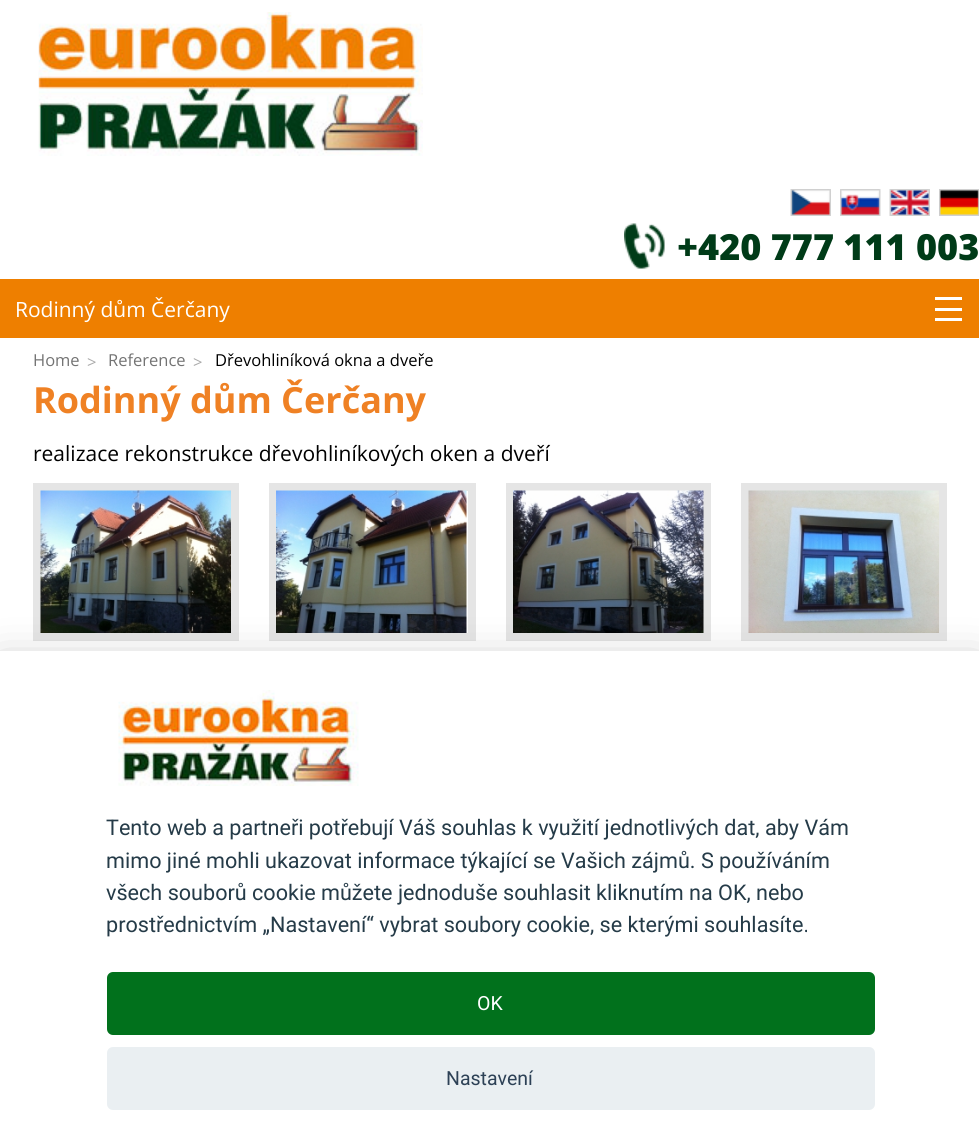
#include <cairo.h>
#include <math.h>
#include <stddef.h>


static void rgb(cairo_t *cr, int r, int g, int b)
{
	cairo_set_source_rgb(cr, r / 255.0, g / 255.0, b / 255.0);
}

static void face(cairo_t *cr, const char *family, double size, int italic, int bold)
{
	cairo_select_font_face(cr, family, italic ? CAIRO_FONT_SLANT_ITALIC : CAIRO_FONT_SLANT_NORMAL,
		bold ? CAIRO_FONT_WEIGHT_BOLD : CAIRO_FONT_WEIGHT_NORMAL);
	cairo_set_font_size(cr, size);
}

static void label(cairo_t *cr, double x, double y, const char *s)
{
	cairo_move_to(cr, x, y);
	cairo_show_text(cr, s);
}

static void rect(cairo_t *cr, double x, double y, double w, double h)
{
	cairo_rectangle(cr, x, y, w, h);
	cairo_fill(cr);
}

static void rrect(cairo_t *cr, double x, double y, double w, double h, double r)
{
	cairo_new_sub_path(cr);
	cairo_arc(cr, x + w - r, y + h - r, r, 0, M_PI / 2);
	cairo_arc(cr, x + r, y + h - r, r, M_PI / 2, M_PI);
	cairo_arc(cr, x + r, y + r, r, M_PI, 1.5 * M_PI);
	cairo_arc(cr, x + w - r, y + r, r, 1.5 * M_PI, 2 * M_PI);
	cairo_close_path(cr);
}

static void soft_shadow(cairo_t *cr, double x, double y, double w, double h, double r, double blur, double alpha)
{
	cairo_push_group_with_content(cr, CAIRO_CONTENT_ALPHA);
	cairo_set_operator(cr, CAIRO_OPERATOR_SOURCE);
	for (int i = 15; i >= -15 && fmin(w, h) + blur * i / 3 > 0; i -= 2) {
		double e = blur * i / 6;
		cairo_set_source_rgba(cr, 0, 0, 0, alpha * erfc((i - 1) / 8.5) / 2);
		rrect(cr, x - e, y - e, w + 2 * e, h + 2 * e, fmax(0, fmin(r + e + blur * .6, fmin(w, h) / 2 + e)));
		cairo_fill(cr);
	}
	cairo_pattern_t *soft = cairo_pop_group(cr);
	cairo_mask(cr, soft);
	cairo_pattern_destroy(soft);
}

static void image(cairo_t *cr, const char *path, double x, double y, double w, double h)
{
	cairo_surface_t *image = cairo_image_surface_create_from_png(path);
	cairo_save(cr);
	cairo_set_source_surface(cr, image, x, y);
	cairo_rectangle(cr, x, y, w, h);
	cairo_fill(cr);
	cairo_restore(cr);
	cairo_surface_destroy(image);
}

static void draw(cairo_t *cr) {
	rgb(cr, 255, 255, 255);
	cairo_paint(cr);
	image(cr, "image0.png", 38, 12, 385, 144);
	image(cr, "image1.png", 790, 189, 41, 27);
	image(cr, "image2.png", 840, 189, 41, 27);
	image(cr, "image3.png", 889, 189, 41, 27);
	image(cr, "image4.png", 939, 189, 40, 27);
	image(cr, "image5.png", 624, 223, 41, 46);
	face(cr, "Open Sans ExtraBold", 36, 0, 0);
	rgb(cr, 0, 59, 24);
	label(cr, 677, 260, "+420 777 111 003");
	rgb(cr, 238, 127, 0);
	rect(cr, 0, 279, 979, 59);
	face(cr, "Open Sans", 21, 0, 0);
	rgb(cr, 255, 255, 255);
	label(cr, 15, 317, "Rodinný dům Čerčany");
	rect(cr, 935, 318, 27, 3);
	rect(cr, 935, 308, 27, 3);
	rect(cr, 935, 297, 27, 3);
	face(cr, "Open Sans", 16.5, 0, 0);
	rgb(cr, 115, 115, 115);
	label(cr, 33, 366, "Home");
	rgb(cr, 170, 170, 170);
	label(cr, 87, 368, ">");
	rgb(cr, 115, 115, 115);
	label(cr, 108, 366, "Reference");
	rgb(cr, 170, 170, 170);
	label(cr, 193, 368, ">");
	rgb(cr, 0, 0, 0);
	label(cr, 215, 366, "Dřevohliníková okna a dveře");
	face(cr, "Open Sans", 36, 0, 1);
	rgb(cr, 239, 129, 36);
	label(cr, 33, 413, "Rodinný dům Čerčany");
	face(cr, "Open Sans", 21, 0, 0);
	rgb(cr, 0, 0, 0);
	label(cr, 33, 461, "realizace rekonstrukce dřevohliníkových oken a dveří");
	cairo_rectangle(cr, 37, 487, 198, 150);
	rgb(cr, 229, 229, 229);
	cairo_set_line_width(cr, 8);
	cairo_stroke(cr);
	image(cr, "image6.png", 40, 490, 191, 143);
	cairo_rectangle(cr, 273, 487, 199, 150);
	cairo_stroke(cr);
	image(cr, "image7.png", 276, 490, 191, 143);
	cairo_rectangle(cr, 510, 487, 197, 150);
	cairo_stroke(cr);
	image(cr, "image8.png", 513, 490, 191, 143);
	cairo_rectangle(cr, 745, 487, 198, 150);
	cairo_stroke(cr);
	image(cr, "image9.png", 748, 490, 191, 143);
	rgb(cr, 2, 2, 3);
	soft_shadow(cr, 0, 666, 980, 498, 0, 22.5, 0.28);
	rgb(cr, 255, 255, 255);
	rect(cr, 0, 651, 979, 497);
	image(cr, "image10.png", 118, 690, 241, 96);
	face(cr, "Roboto", 21.6, 0, 0);
	rgb(cr, 37, 59, 72);
	label(cr, 106, 835, "Tento web a partneři potřebují Váš souhlas k využití jednotlivých dat, aby Vám");
	label(cr, 106, 868, "mimo jiné mohli ukazovat informace týkající se Vašich zájmů. S používáním");
	label(cr, 106, 900, "všech souborů cookie můžete jednoduše souhlasit kliknutím na OK, nebo");
	label(cr, 106, 932, "prostřednictvím „Nastavení“ vybrat soubory cookie, se kterými souhlasíte.");
	rgb(cr, 1, 113, 28);
	rrect(cr, 107, 972, 768, 63, 6);
	cairo_fill(cr);
	face(cr, "Roboto", 19.5, 0, 0);
	rgb(cr, 255, 255, 255);
	label(cr, 477, 1010, "OK");
	rgb(cr, 234, 239, 242);
	rrect(cr, 107, 1047, 768, 63, 6);
	cairo_fill(cr);
	rgb(cr, 45, 65, 86);
	label(cr, 446, 1085, "Nastavení");
}

int main(void) {
	cairo_surface_t *surface = cairo_image_surface_create(CAIRO_FORMAT_RGB24, 979, 1148);
	cairo_t *cr = cairo_create(surface);
	cairo_font_options_t *options = cairo_font_options_create();
	cairo_font_options_set_hint_metrics(options, CAIRO_HINT_METRICS_OFF);
	cairo_font_options_set_hint_style(options, CAIRO_HINT_STYLE_NONE);
	cairo_set_font_options(cr, options);
	cairo_set_miter_limit(cr, 4);
	draw(cr);
	cairo_surface_write_to_png(surface, "render.png");
	cairo_font_options_destroy(options);
	cairo_destroy(cr);
	cairo_surface_destroy(surface);
	return 0;
}
